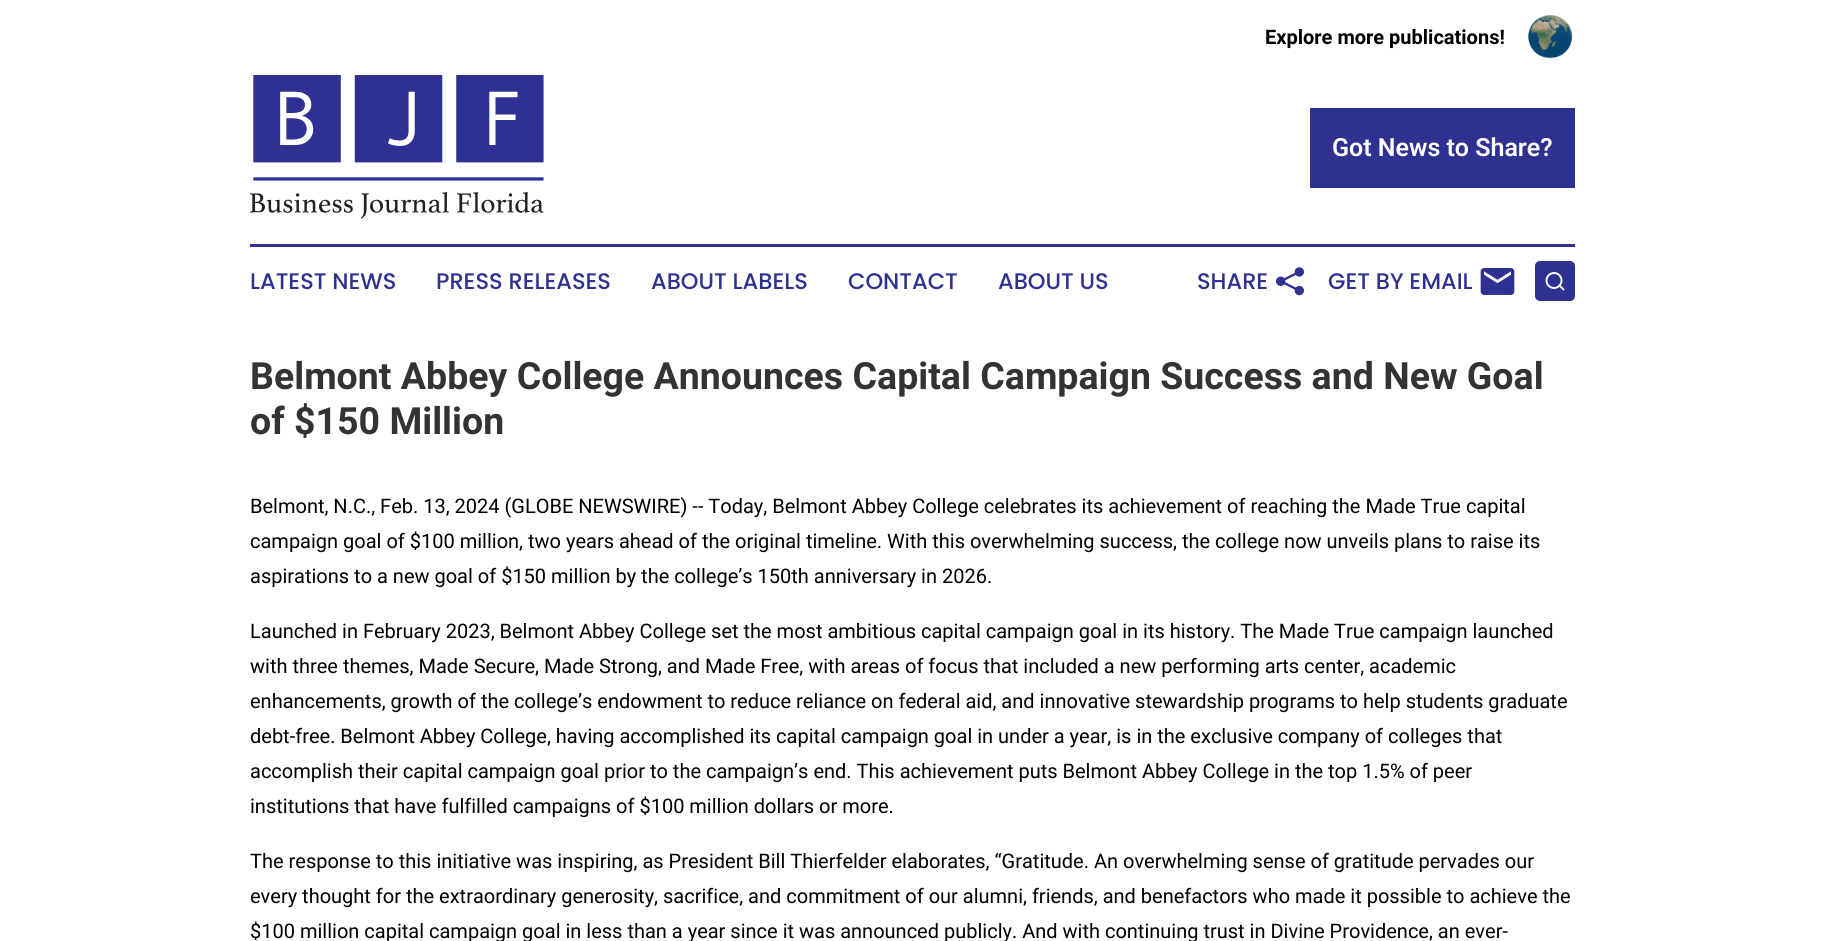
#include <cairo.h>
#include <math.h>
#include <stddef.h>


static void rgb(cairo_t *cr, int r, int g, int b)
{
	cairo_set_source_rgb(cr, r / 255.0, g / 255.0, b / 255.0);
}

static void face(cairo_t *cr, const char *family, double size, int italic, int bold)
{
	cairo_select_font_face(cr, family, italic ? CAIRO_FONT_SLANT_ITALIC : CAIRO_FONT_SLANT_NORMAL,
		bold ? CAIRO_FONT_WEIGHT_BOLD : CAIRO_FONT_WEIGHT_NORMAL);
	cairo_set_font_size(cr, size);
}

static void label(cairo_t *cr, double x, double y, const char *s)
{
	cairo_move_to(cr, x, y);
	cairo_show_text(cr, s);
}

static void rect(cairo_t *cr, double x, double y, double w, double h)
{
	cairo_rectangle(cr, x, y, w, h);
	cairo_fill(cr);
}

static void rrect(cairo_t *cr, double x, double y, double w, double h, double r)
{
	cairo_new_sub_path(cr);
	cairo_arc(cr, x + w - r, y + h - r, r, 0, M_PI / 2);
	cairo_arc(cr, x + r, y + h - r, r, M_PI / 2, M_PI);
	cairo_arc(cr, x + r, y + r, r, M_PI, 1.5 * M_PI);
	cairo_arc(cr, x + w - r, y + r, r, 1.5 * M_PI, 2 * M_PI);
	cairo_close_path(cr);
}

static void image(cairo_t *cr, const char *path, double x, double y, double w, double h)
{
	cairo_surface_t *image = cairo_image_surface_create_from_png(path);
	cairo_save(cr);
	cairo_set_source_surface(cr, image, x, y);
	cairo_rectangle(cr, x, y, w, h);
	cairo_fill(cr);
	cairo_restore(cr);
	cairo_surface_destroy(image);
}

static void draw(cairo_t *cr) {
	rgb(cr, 255, 255, 255);
	cairo_paint(cr);
	face(cr, "Roboto", 20, 0, 1);
	rgb(cr, 0, 0, 0);
	label(cr, 1265, 44, "Explore more publications!");
	image(cr, "image0.png", 1528, 15, 45, 44);
	image(cr, "image1.png", 250, 75, 294, 144);
	rgb(cr, 46, 49, 144);
	rect(cr, 1310, 108, 265, 80);
	face(cr, "Roboto SemiBold", 25, 0, 0);
	rgb(cr, 255, 255, 255);
	label(cr, 1332, 156, "Got News to Share?");
	rgb(cr, 46, 49, 144);
	rect(cr, 250, 244, 1325, 3);
	face(cr, "Poppins Medium", 22.5, 0, 0);
	label(cr, 250, 289, "LATEST NEWS");
	label(cr, 436, 289, "PRESS RELEASES");
	label(cr, 651, 289, "ABOUT LABELS");
	label(cr, 848, 289, "CONTACT");
	label(cr, 998, 289, "ABOUT US");
	label(cr, 1197, 289, "SHARE");
	image(cr, "image2.png", 1276, 267, 28, 29);
	label(cr, 1328, 289, "GET BY EMAIL");
	image(cr, "image3.png", 1480, 268, 35, 27);
	rrect(cr, 1535, 261, 40, 40, 5);
	cairo_fill(cr);
	cairo_arc(cr, 1554, 280.5, 7.5, 0, 2 * M_PI);
	rgb(cr, 255, 255, 255);
	cairo_set_line_width(cr, 1.9);
	cairo_stroke(cr);
	cairo_new_path(cr);
	cairo_move_to(cr, 1563.5, 289.5);
	cairo_line_to(cr, 1559.5, 285.5);
	cairo_set_line_cap(cr, CAIRO_LINE_CAP_ROUND);
	cairo_set_line_join(cr, CAIRO_LINE_JOIN_ROUND);
	cairo_stroke(cr);
	face(cr, "Roboto", 37.5, 0, 1);
	rgb(cr, 51, 51, 51);
	label(cr, 250, 389, "Belmont Abbey College Announces Capital Campaign Success and New Goal");
	label(cr, 250, 434, "of $150 Million");
	face(cr, "Roboto", 20, 0, 0);
	rgb(cr, 0, 0, 0);
	label(cr, 250, 513, "Belmont, N.C., Feb. 13, 2024 (GLOBE NEWSWIRE) -- Today, Belmont Abbey College celebrates its achievement of reaching the Made True capital");
	label(cr, 250, 548, "campaign goal of $100 million, two years ahead of the original timeline. With this overwhelming success, the college now unveils plans to raise its");
	label(cr, 250, 583, "aspirations to a new goal of $150 million by the college’s 150th anniversary in 2026.");
	label(cr, 250, 638, "Launched in February 2023, Belmont Abbey College set the most ambitious capital campaign goal in its history. The Made True campaign launched");
	label(cr, 250, 673, "with three themes, Made Secure, Made Strong, and Made Free, with areas of focus that included a new performing arts center, academic");
	label(cr, 250, 708, "enhancements, growth of the college’s endowment to reduce reliance on federal aid, and innovative stewardship programs to help students graduate");
	label(cr, 250, 743, "debt-free. Belmont Abbey College, having accomplished its capital campaign goal in under a year, is in the exclusive company of colleges that");
	label(cr, 250, 778, "accomplish their capital campaign goal prior to the campaign’s end. This achievement puts Belmont Abbey College in the top 1.5% of peer");
	label(cr, 250, 813, "institutions that have fulfilled campaigns of $100 million dollars or more.");
	label(cr, 250, 868, "The response to this initiative was inspiring, as President Bill Thierfelder elaborates, “Gratitude. An overwhelming sense of gratitude pervades our");
	label(cr, 250, 903, "every thought for the extraordinary generosity, sacrifice, and commitment of our alumni, friends, and benefactors who made it possible to achieve the");
	label(cr, 250, 938, "$100 million capital campaign goal in less than a year since it was announced publicly. And with continuing trust in Divine Providence, an ever-");
}

int main(void) {
	cairo_surface_t *surface = cairo_image_surface_create(CAIRO_FORMAT_RGB24, 1824, 941);
	cairo_t *cr = cairo_create(surface);
	cairo_font_options_t *options = cairo_font_options_create();
	cairo_font_options_set_hint_metrics(options, CAIRO_HINT_METRICS_OFF);
	cairo_font_options_set_hint_style(options, CAIRO_HINT_STYLE_NONE);
	cairo_set_font_options(cr, options);
	cairo_set_miter_limit(cr, 4);
	draw(cr);
	cairo_surface_write_to_png(surface, "render.png");
	cairo_font_options_destroy(options);
	cairo_destroy(cr);
	cairo_surface_destroy(surface);
	return 0;
}
